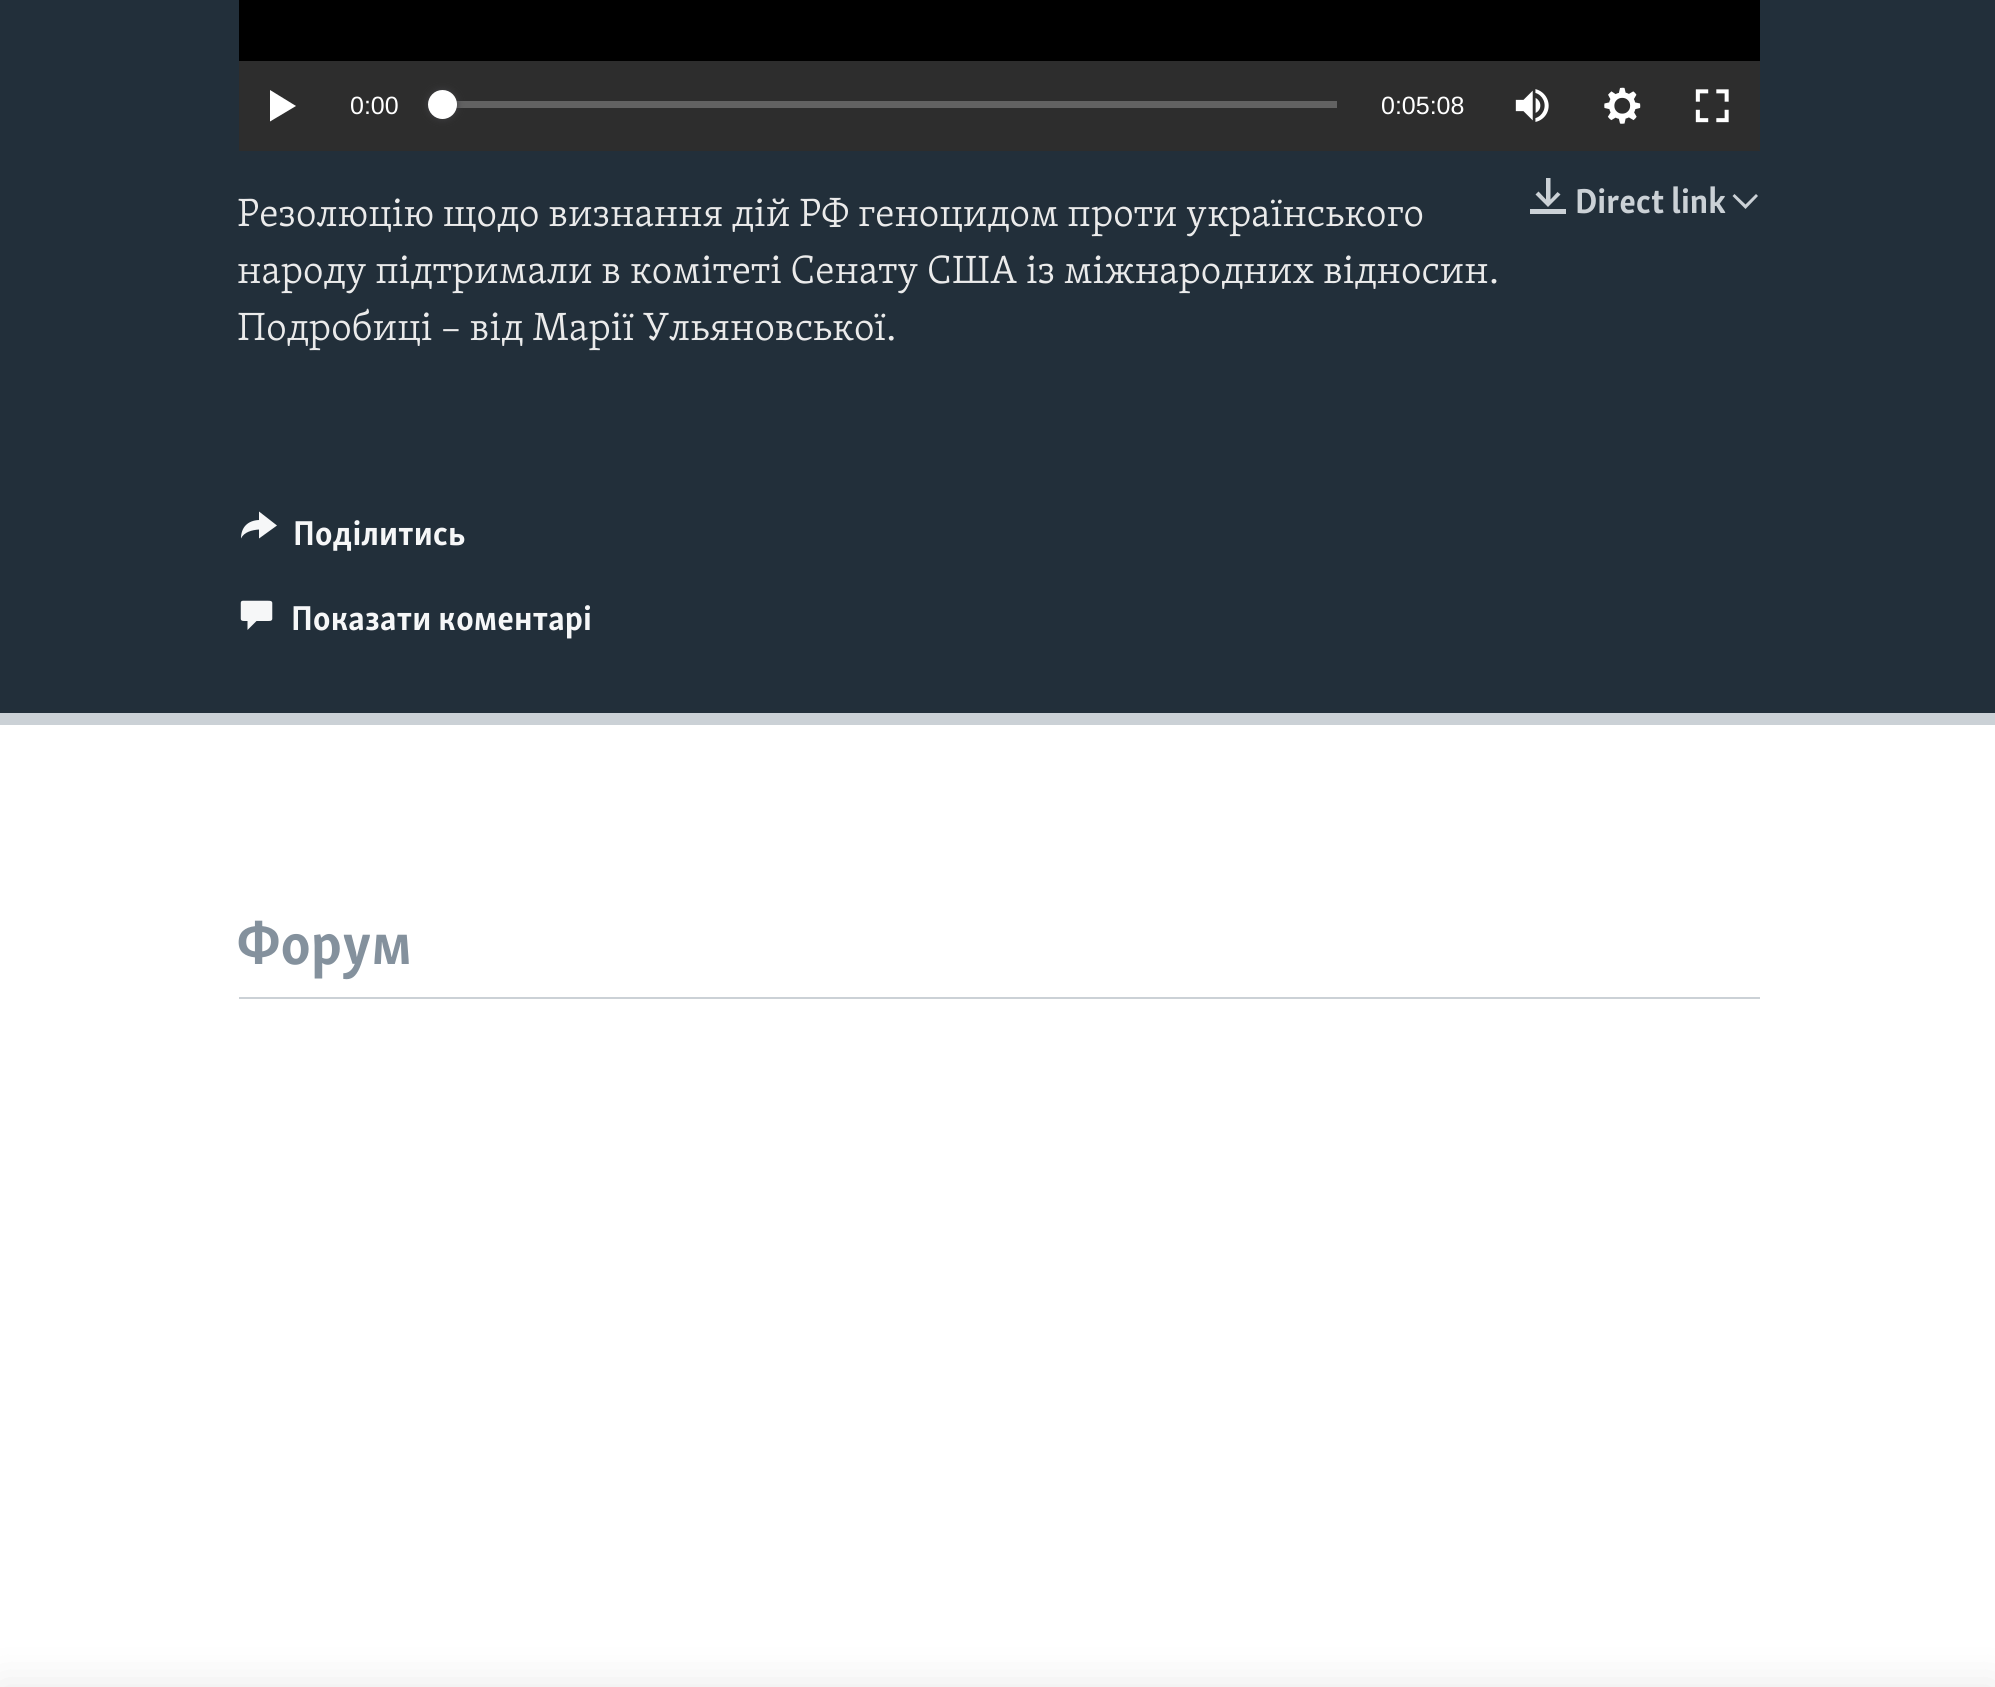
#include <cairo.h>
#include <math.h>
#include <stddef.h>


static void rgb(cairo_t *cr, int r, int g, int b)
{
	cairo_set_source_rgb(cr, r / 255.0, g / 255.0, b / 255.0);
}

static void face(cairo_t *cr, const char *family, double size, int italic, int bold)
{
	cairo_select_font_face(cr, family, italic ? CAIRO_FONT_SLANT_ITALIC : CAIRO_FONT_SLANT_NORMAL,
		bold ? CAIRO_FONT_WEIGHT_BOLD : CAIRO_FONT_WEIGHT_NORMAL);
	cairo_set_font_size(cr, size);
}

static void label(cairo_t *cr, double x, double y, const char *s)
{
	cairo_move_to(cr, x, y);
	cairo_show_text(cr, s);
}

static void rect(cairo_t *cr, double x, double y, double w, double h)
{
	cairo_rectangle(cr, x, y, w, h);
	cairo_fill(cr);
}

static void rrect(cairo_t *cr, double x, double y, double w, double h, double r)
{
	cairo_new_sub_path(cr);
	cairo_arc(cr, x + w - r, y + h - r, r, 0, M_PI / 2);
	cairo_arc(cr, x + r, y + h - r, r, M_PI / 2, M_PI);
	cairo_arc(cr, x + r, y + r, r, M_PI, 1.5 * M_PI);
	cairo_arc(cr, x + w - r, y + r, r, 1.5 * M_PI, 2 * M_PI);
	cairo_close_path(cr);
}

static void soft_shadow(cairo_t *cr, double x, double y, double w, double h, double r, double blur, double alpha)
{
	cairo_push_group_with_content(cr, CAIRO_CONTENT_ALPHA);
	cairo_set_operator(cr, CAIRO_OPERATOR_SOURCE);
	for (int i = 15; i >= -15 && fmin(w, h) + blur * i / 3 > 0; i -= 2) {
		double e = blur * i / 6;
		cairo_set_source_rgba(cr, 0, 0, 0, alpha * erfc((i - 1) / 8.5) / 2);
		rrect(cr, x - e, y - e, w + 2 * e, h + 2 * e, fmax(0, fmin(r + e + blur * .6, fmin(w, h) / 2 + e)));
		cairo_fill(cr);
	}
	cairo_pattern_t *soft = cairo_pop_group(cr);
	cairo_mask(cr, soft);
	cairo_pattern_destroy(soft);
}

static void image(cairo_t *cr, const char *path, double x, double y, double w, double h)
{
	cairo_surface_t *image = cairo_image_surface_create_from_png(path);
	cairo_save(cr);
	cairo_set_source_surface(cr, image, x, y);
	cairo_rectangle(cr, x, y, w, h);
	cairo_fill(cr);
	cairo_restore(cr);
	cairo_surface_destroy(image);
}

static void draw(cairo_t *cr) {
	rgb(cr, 255, 255, 255);
	cairo_paint(cr);
	rgb(cr, 34, 47, 58);
	rect(cr, 0, 0, 1995, 713);
	rgb(cr, 203, 209, 214);
	rect(cr, 0, 713, 1995, 12);
	rgb(cr, 0, 0, 0);
	rect(cr, 239, 0, 1521, 61);
	rgb(cr, 45, 45, 45);
	rect(cr, 239, 61, 1521, 90);
	rgb(cr, 255, 255, 255);
	cairo_new_path(cr);
	cairo_move_to(cr, 270, 121.5);
	cairo_line_to(cr, 296, 106);
	cairo_line_to(cr, 270, 90);
	cairo_close_path(cr);
	cairo_fill(cr);
	face(cr, "Liberation Sans", 25, 0, 0);
	label(cr, 350, 114, "0:00");
	rgb(cr, 98, 98, 98);
	rect(cr, 456, 101, 881, 7);
	rgb(cr, 65, 65, 68);
	soft_shadow(cr, 428, 90, 29, 29, 14.5, 3.5, 1);
	rgb(cr, 255, 255, 255);
	cairo_arc(cr, 442.5, 104.5, 14.5, 0, 2 * M_PI);
	cairo_fill(cr);
	label(cr, 1381, 114, "0:05:08");
	image(cr, "image0.png", 1515, 89, 34, 33);
	image(cr, "image1.png", 1604, 87, 37, 37);
	image(cr, "image2.png", 1695, 89, 34, 34);
	face(cr, "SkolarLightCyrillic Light", 40.5, 0, 0);
	rgb(cr, 235, 235, 235);
	label(cr, 237, 226, "Резолюцію щодо визнання дій РФ геноцидом проти українського");
	label(cr, 237, 283, "народу підтримали в комітеті Сенату США із міжнародних відносин.");
	label(cr, 237, 340, "Подробиці – від Марії Ульяновської.");
	rgb(cr, 203, 209, 214);
	cairo_new_path(cr);
	cairo_move_to(cr, 1566, 209);
	cairo_line_to(cr, 1566, 214);
	cairo_line_to(cr, 1530, 214);
	cairo_line_to(cr, 1530, 209);
	cairo_close_path(cr);
	cairo_move_to(cr, 1560.5, 194.5);
	cairo_line_to(cr, 1557.5, 192);
	cairo_line_to(cr, 1550.5, 199.5);
	cairo_line_to(cr, 1550.5, 178);
	cairo_line_to(cr, 1546, 178);
	cairo_line_to(cr, 1546, 199.5);
	cairo_line_to(cr, 1538.5, 191.5);
	cairo_line_to(cr, 1535.5, 194.5);
	cairo_line_to(cr, 1548, 207);
	cairo_close_path(cr);
	cairo_fill(cr);
	face(cr, "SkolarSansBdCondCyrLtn", 35.5, 0, 1);
	label(cr, 1575, 213, "Direct link");
	cairo_new_path(cr);
	cairo_move_to(cr, 1732.5, 196);
	cairo_line_to(cr, 1745.5, 209);
	cairo_line_to(cr, 1758, 196);
	cairo_line_to(cr, 1756, 194);
	cairo_line_to(cr, 1745.5, 204.5);
	cairo_line_to(cr, 1734.5, 194);
	cairo_close_path(cr);
	cairo_fill(cr);
	rgb(cr, 246, 247, 248);
	cairo_new_path(cr);
	cairo_move_to(cr, 241, 538.5);
	cairo_curve_to(cr, 241, 527.5, 247.5, 520.5, 259, 520);
	cairo_line_to(cr, 259, 511.5);
	cairo_line_to(cr, 277, 525.5);
	cairo_line_to(cr, 259, 538.5);
	cairo_line_to(cr, 259, 529.5);
	cairo_curve_to(cr, 252, 530, 244, 532, 241, 538.5);
	cairo_close_path(cr);
	cairo_fill(cr);
	label(cr, 293, 545, "Поділитись");
	image(cr, "image3.png", 240, 600, 33, 30);
	label(cr, 291, 630, "Показати коментарі");
	rgb(cr, 203, 209, 214);
	rect(cr, 239, 997, 1521, 2);
	face(cr, "SkolarSansBdCondCyrLtn", 61, 0, 1);
	rgb(cr, 132, 145, 157);
	label(cr, 237, 964, "Форум");
	rgb(cr, 0, 0, 0);
	soft_shadow(cr, 0, 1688, 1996, 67, 0, 22.5, 0.1);
}

int main(void) {
	cairo_surface_t *surface = cairo_image_surface_create(CAIRO_FORMAT_RGB24, 1995, 1687);
	cairo_t *cr = cairo_create(surface);
	cairo_font_options_t *options = cairo_font_options_create();
	cairo_font_options_set_hint_metrics(options, CAIRO_HINT_METRICS_OFF);
	cairo_font_options_set_hint_style(options, CAIRO_HINT_STYLE_NONE);
	cairo_set_font_options(cr, options);
	cairo_set_miter_limit(cr, 4);
	draw(cr);
	cairo_surface_write_to_png(surface, "render.png");
	cairo_font_options_destroy(options);
	cairo_destroy(cr);
	cairo_surface_destroy(surface);
	return 0;
}
